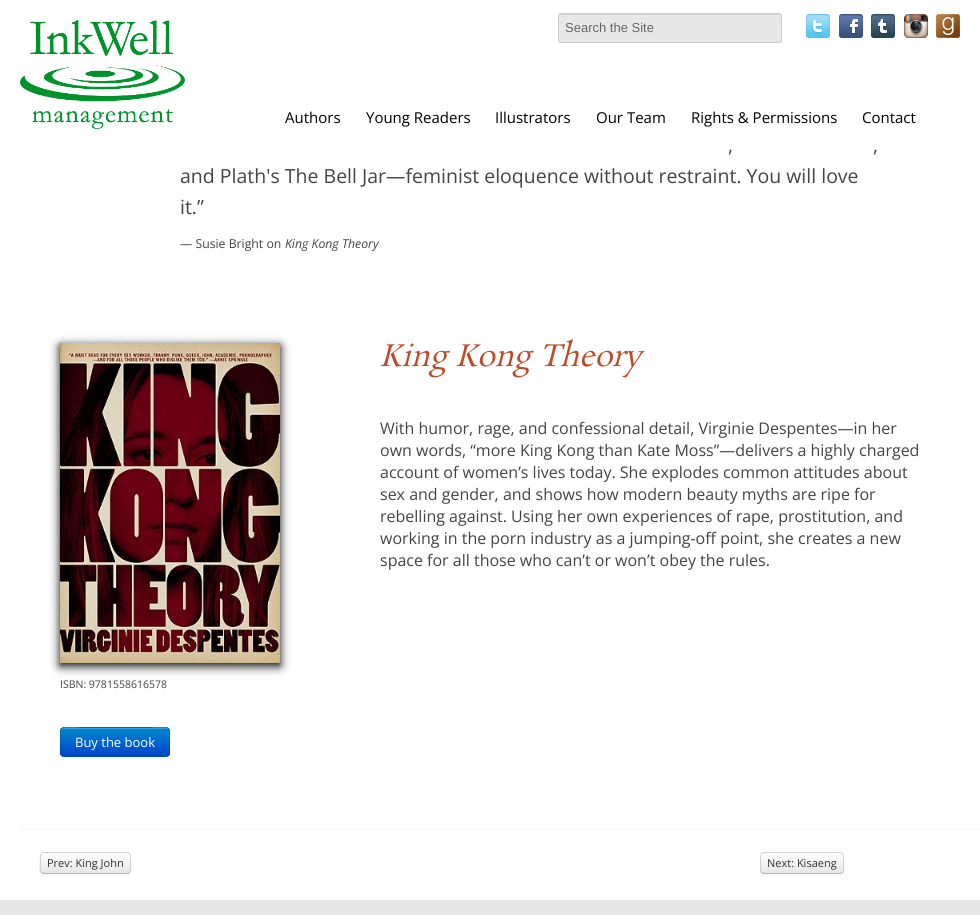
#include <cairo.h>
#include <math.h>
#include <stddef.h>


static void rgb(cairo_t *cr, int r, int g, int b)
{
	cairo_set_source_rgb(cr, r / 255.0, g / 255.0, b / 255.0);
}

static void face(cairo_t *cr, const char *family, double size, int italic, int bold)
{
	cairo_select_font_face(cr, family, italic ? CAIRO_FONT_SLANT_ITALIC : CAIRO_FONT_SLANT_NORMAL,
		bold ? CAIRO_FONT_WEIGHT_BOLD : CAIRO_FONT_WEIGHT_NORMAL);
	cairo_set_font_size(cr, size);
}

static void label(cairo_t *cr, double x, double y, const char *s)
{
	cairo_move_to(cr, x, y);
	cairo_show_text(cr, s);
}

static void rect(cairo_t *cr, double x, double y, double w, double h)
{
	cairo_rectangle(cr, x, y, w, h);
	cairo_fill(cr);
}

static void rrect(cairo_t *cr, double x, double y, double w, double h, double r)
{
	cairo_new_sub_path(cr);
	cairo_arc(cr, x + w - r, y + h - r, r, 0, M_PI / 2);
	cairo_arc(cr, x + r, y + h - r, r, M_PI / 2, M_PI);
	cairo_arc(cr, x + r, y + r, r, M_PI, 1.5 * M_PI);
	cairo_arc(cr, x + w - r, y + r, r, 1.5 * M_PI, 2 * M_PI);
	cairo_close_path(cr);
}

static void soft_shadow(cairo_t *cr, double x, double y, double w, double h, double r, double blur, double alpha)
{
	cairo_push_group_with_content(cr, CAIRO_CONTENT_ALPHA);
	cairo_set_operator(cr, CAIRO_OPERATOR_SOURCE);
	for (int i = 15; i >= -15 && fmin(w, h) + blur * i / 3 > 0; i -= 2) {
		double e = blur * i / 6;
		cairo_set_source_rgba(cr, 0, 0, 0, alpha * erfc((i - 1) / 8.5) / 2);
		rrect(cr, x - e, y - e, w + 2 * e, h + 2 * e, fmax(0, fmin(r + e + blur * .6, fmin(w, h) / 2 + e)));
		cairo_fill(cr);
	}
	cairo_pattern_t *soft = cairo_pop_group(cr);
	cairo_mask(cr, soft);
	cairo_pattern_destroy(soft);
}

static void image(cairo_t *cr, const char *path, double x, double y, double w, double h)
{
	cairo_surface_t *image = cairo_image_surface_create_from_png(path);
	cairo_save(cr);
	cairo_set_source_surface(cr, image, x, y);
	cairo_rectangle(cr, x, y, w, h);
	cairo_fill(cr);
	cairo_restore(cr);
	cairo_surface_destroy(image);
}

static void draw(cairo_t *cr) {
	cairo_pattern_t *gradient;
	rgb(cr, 255, 255, 255);
	cairo_paint(cr);
	image(cr, "image0.png", 20, 20, 165, 109);
	rgb(cr, 232, 232, 232);
	rrect(cr, 558, 13, 224, 30, 3);
	cairo_fill(cr);
	rgb(cr, 215, 215, 215);
	cairo_new_path(cr);
	cairo_move_to(cr, 561, 15);
	cairo_line_to(cr, 779, 15);
	cairo_curve_to(cr, 780, 15, 781, 16, 781, 17);
	cairo_curve_to(cr, 781, 16, 781, 14, 779, 14);
	cairo_line_to(cr, 561, 14);
	cairo_line_to(cr, 560, 15);
	cairo_line_to(cr, 559, 17);
	cairo_curve_to(cr, 559, 16, 560, 15, 561, 15);
	cairo_close_path(cr);
	cairo_fill(cr);
	rrect(cr, 558.5, 13.5, 223, 29, 2.5);
	rgb(cr, 204, 204, 204);
	cairo_set_line_width(cr, 1);
	cairo_stroke(cr);
	face(cr, "Liberation Sans", 13, 0, 0);
	rgb(cr, 102, 102, 102);
	label(cr, 565, 32, "Search the Site");
	image(cr, "image1.png", 806, 14, 24, 24);
	image(cr, "image2.png", 839, 14, 24, 24);
	image(cr, "image3.png", 871, 14, 24, 24);
	image(cr, "image4.png", 904, 14, 24, 24);
	image(cr, "image5.png", 936, 14, 24, 24);
	face(cr, "Open Sans", 15, 0, 0);
	rgb(cr, 0, 0, 0);
	label(cr, 285, 123, "Authors");
	label(cr, 366, 123, "Young Readers");
	label(cr, 495, 123, "Illustrators");
	label(cr, 596, 123, "Our Team");
	label(cr, 691, 123, "Rights & Permissions");
	label(cr, 862, 123, "Contact");
	face(cr, "Open Sans", 19.5, 0, 0);
	rgb(cr, 68, 68, 68);
	label(cr, 728, 152, ",");
	label(cr, 873, 152, ",");
	label(cr, 180, 183, "and Plath's The Bell Jar—feminist eloquence without restraint. You will love");
	label(cr, 180, 214, "it.”");
	face(cr, "Open Sans", 12.25, 0, 0);
	label(cr, 180, 248, "— Susie Bright on");
	face(cr, "Open Sans", 12.25, 1, 0);
	label(cr, 285, 248, "King Kong Theory");
	face(cr, "Rosarivo", 30, 1, 0);
	rgb(cr, 191, 74, 41);
	label(cr, 380, 366, "King Kong Theory");
	face(cr, "Open Sans", 16, 0, 0);
	rgb(cr, 68, 68, 68);
	label(cr, 380, 434, "With humor, rage, and confessional detail, Virginie Despentes—in her");
	label(cr, 380, 456, "own words, “more King Kong than Kate Moss”—delivers a highly charged");
	label(cr, 380, 478, "account of women’s lives today. She explodes common attitudes about");
	label(cr, 380, 500, "sex and gender, and shows how modern beauty myths are ripe for");
	label(cr, 380, 522, "rebelling against. Using her own experiences of rape, prostitution, and");
	label(cr, 380, 544, "working in the porn industry as a jumping-off point, she creates a new");
	label(cr, 380, 566, "space for all those who can’t or won’t obey the rules.");
	rgb(cr, 0, 0, 0);
	soft_shadow(cr, 60, 346, 220, 320, 0, 5, 1);
	image(cr, "image6.png", 60, 343, 220, 320);
	face(cr, "Open Sans", 10.5, 0, 0);
	rgb(cr, 68, 68, 68);
	label(cr, 60, 688, "ISBN: 9781558616578");
	rgb(cr, 0, 0, 0);
	soft_shadow(cr, 60, 728, 110, 30, 4, 1, 0.05);
	rgb(cr, 0, 109, 204);
	rrect(cr, 60, 727, 110, 30, 4);
	cairo_fill(cr);
	cairo_save(cr);
	rrect(cr, 60, 727, 110, 30, 4);
	cairo_clip(cr);
	gradient = cairo_pattern_create_linear(115, 728, 115, 756);
	cairo_pattern_add_color_stop_rgba(gradient, 0, 0, 0.533, 0.8, 1);
	cairo_pattern_add_color_stop_rgba(gradient, 1, 0, 0.267, 0.8, 1);
	cairo_set_source(cr, gradient);
	cairo_pattern_destroy(gradient);
	rect(cr, 60, 728, 110, 28);
	cairo_restore(cr);
	cairo_set_source_rgba(cr, 1, 1, 1, 0.2);
	cairo_new_path(cr);
	cairo_move_to(cr, 64, 729);
	cairo_line_to(cr, 166, 729);
	cairo_curve_to(cr, 168, 729, 169, 730, 169, 732);
	cairo_curve_to(cr, 169, 723, 151, 728, 149, 728);
	cairo_line_to(cr, 81, 728);
	cairo_curve_to(cr, 79, 728, 61, 723, 61, 732);
	cairo_curve_to(cr, 61, 730, 62, 729, 64, 729);
	cairo_close_path(cr);
	cairo_fill(cr);
	cairo_new_path(cr);
	cairo_move_to(cr, 168.5, 755.5);
	cairo_line_to(cr, 166, 756.5);
	cairo_line_to(cr, 63.5, 756.5);
	cairo_line_to(cr, 61.5, 755.5);
	cairo_set_source_rgba(cr, 0, 0, 0, 0.25);
	cairo_stroke(cr);
	cairo_new_path(cr);
	cairo_move_to(cr, 61.5, 755.5);
	cairo_curve_to(cr, 59, 753, 60.5, 748.5, 60.5, 745.5);
	cairo_curve_to(cr, 60.5, 723.5, 57, 727.5, 81, 727.5);
	cairo_line_to(cr, 149, 727.5);
	cairo_curve_to(cr, 173, 727.5, 169.5, 723.5, 169.5, 745.5);
	cairo_curve_to(cr, 169.5, 748.5, 171, 753, 168.5, 755.5);
	cairo_set_source_rgba(cr, 0, 0, 0, 0.1);
	cairo_stroke(cr);
	face(cr, "Open Sans", 13, 0, 0);
	rgb(cr, 255, 255, 255);
	label(cr, 75, 747, "Buy the book");
	rgb(cr, 246, 246, 246);
	rect(cr, 20, 829, 960, 1);
	rgb(cr, 0, 0, 0);
	soft_shadow(cr, 40, 853, 91, 22, 4, 1, 0.05);
	rgb(cr, 245, 245, 245);
	rrect(cr, 40, 852, 91, 22, 4);
	cairo_fill(cr);
	cairo_save(cr);
	rrect(cr, 40, 852, 91, 22, 4);
	cairo_clip(cr);
	gradient = cairo_pattern_create_linear(86, 853, 86, 873);
	cairo_pattern_add_color_stop_rgba(gradient, 0, 1, 1, 1, 1);
	cairo_pattern_add_color_stop_rgba(gradient, 1, 0.902, 0.902, 0.902, 1);
	cairo_set_source(cr, gradient);
	cairo_pattern_destroy(gradient);
	rect(cr, 40, 853, 91, 20);
	cairo_restore(cr);
	cairo_new_path(cr);
	cairo_move_to(cr, 129.5, 872.5);
	cairo_line_to(cr, 127.5, 873.5);
	cairo_line_to(cr, 43.5, 873.5);
	cairo_line_to(cr, 41.5, 872.5);
	cairo_set_source_rgba(cr, 0, 0, 0, 0.25);
	cairo_stroke(cr);
	cairo_new_path(cr);
	cairo_move_to(cr, 41.5, 872.5);
	cairo_curve_to(cr, 39, 870, 40.5, 863.5, 40.5, 860.5);
	cairo_curve_to(cr, 40.5, 858, 39.5, 852.5, 44, 852.5);
	cairo_line_to(cr, 127, 852.5);
	cairo_curve_to(cr, 131.5, 852.5, 130.5, 858, 130.5, 860.5);
	cairo_curve_to(cr, 130.5, 863.5, 132, 870, 129.5, 872.5);
	cairo_set_source_rgba(cr, 0, 0, 0, 0.15);
	cairo_stroke(cr);
	face(cr, "Open Sans", 11, 0, 0);
	rgb(cr, 51, 51, 51);
	label(cr, 47, 867, "Prev: King John");
	rgb(cr, 0, 0, 0);
	soft_shadow(cr, 760, 853, 84, 22, 4, 1, 0.05);
	rgb(cr, 245, 245, 245);
	rrect(cr, 760, 852, 84, 22, 4);
	cairo_fill(cr);
	cairo_save(cr);
	rrect(cr, 760, 852, 84, 22, 4);
	cairo_clip(cr);
	gradient = cairo_pattern_create_linear(802, 853, 802, 873);
	cairo_pattern_add_color_stop_rgba(gradient, 0, 1, 1, 1, 1);
	cairo_pattern_add_color_stop_rgba(gradient, 1, 0.902, 0.902, 0.902, 1);
	cairo_set_source(cr, gradient);
	cairo_pattern_destroy(gradient);
	rect(cr, 760, 853, 84, 20);
	cairo_restore(cr);
	cairo_new_path(cr);
	cairo_move_to(cr, 842.5, 872.5);
	cairo_line_to(cr, 840.5, 873.5);
	cairo_line_to(cr, 763.5, 873.5);
	cairo_line_to(cr, 761.5, 872.5);
	cairo_set_source_rgba(cr, 0, 0, 0, 0.25);
	cairo_stroke(cr);
	cairo_new_path(cr);
	cairo_move_to(cr, 761.5, 872.5);
	cairo_curve_to(cr, 760, 870.5, 760.5, 867.5, 760.5, 865.5);
	cairo_curve_to(cr, 760.5, 850, 759.5, 852.5, 776.5, 852.5);
	cairo_line_to(cr, 827.5, 852.5);
	cairo_curve_to(cr, 844.5, 852.5, 843.5, 850, 843.5, 865.5);
	cairo_curve_to(cr, 843.5, 867.5, 844, 870.5, 842.5, 872.5);
	cairo_set_source_rgba(cr, 0, 0, 0, 0.15);
	cairo_stroke(cr);
	rgb(cr, 51, 51, 51);
	label(cr, 767, 867, "Next: Kisaeng");
	rgb(cr, 232, 232, 232);
	rect(cr, 0, 900, 980, 15);
}

int main(void) {
	cairo_surface_t *surface = cairo_image_surface_create(CAIRO_FORMAT_RGB24, 980, 915);
	cairo_t *cr = cairo_create(surface);
	cairo_font_options_t *options = cairo_font_options_create();
	cairo_font_options_set_hint_metrics(options, CAIRO_HINT_METRICS_OFF);
	cairo_font_options_set_hint_style(options, CAIRO_HINT_STYLE_NONE);
	cairo_set_font_options(cr, options);
	cairo_set_miter_limit(cr, 4);
	draw(cr);
	cairo_surface_write_to_png(surface, "render.png");
	cairo_font_options_destroy(options);
	cairo_destroy(cr);
	cairo_surface_destroy(surface);
	return 0;
}
